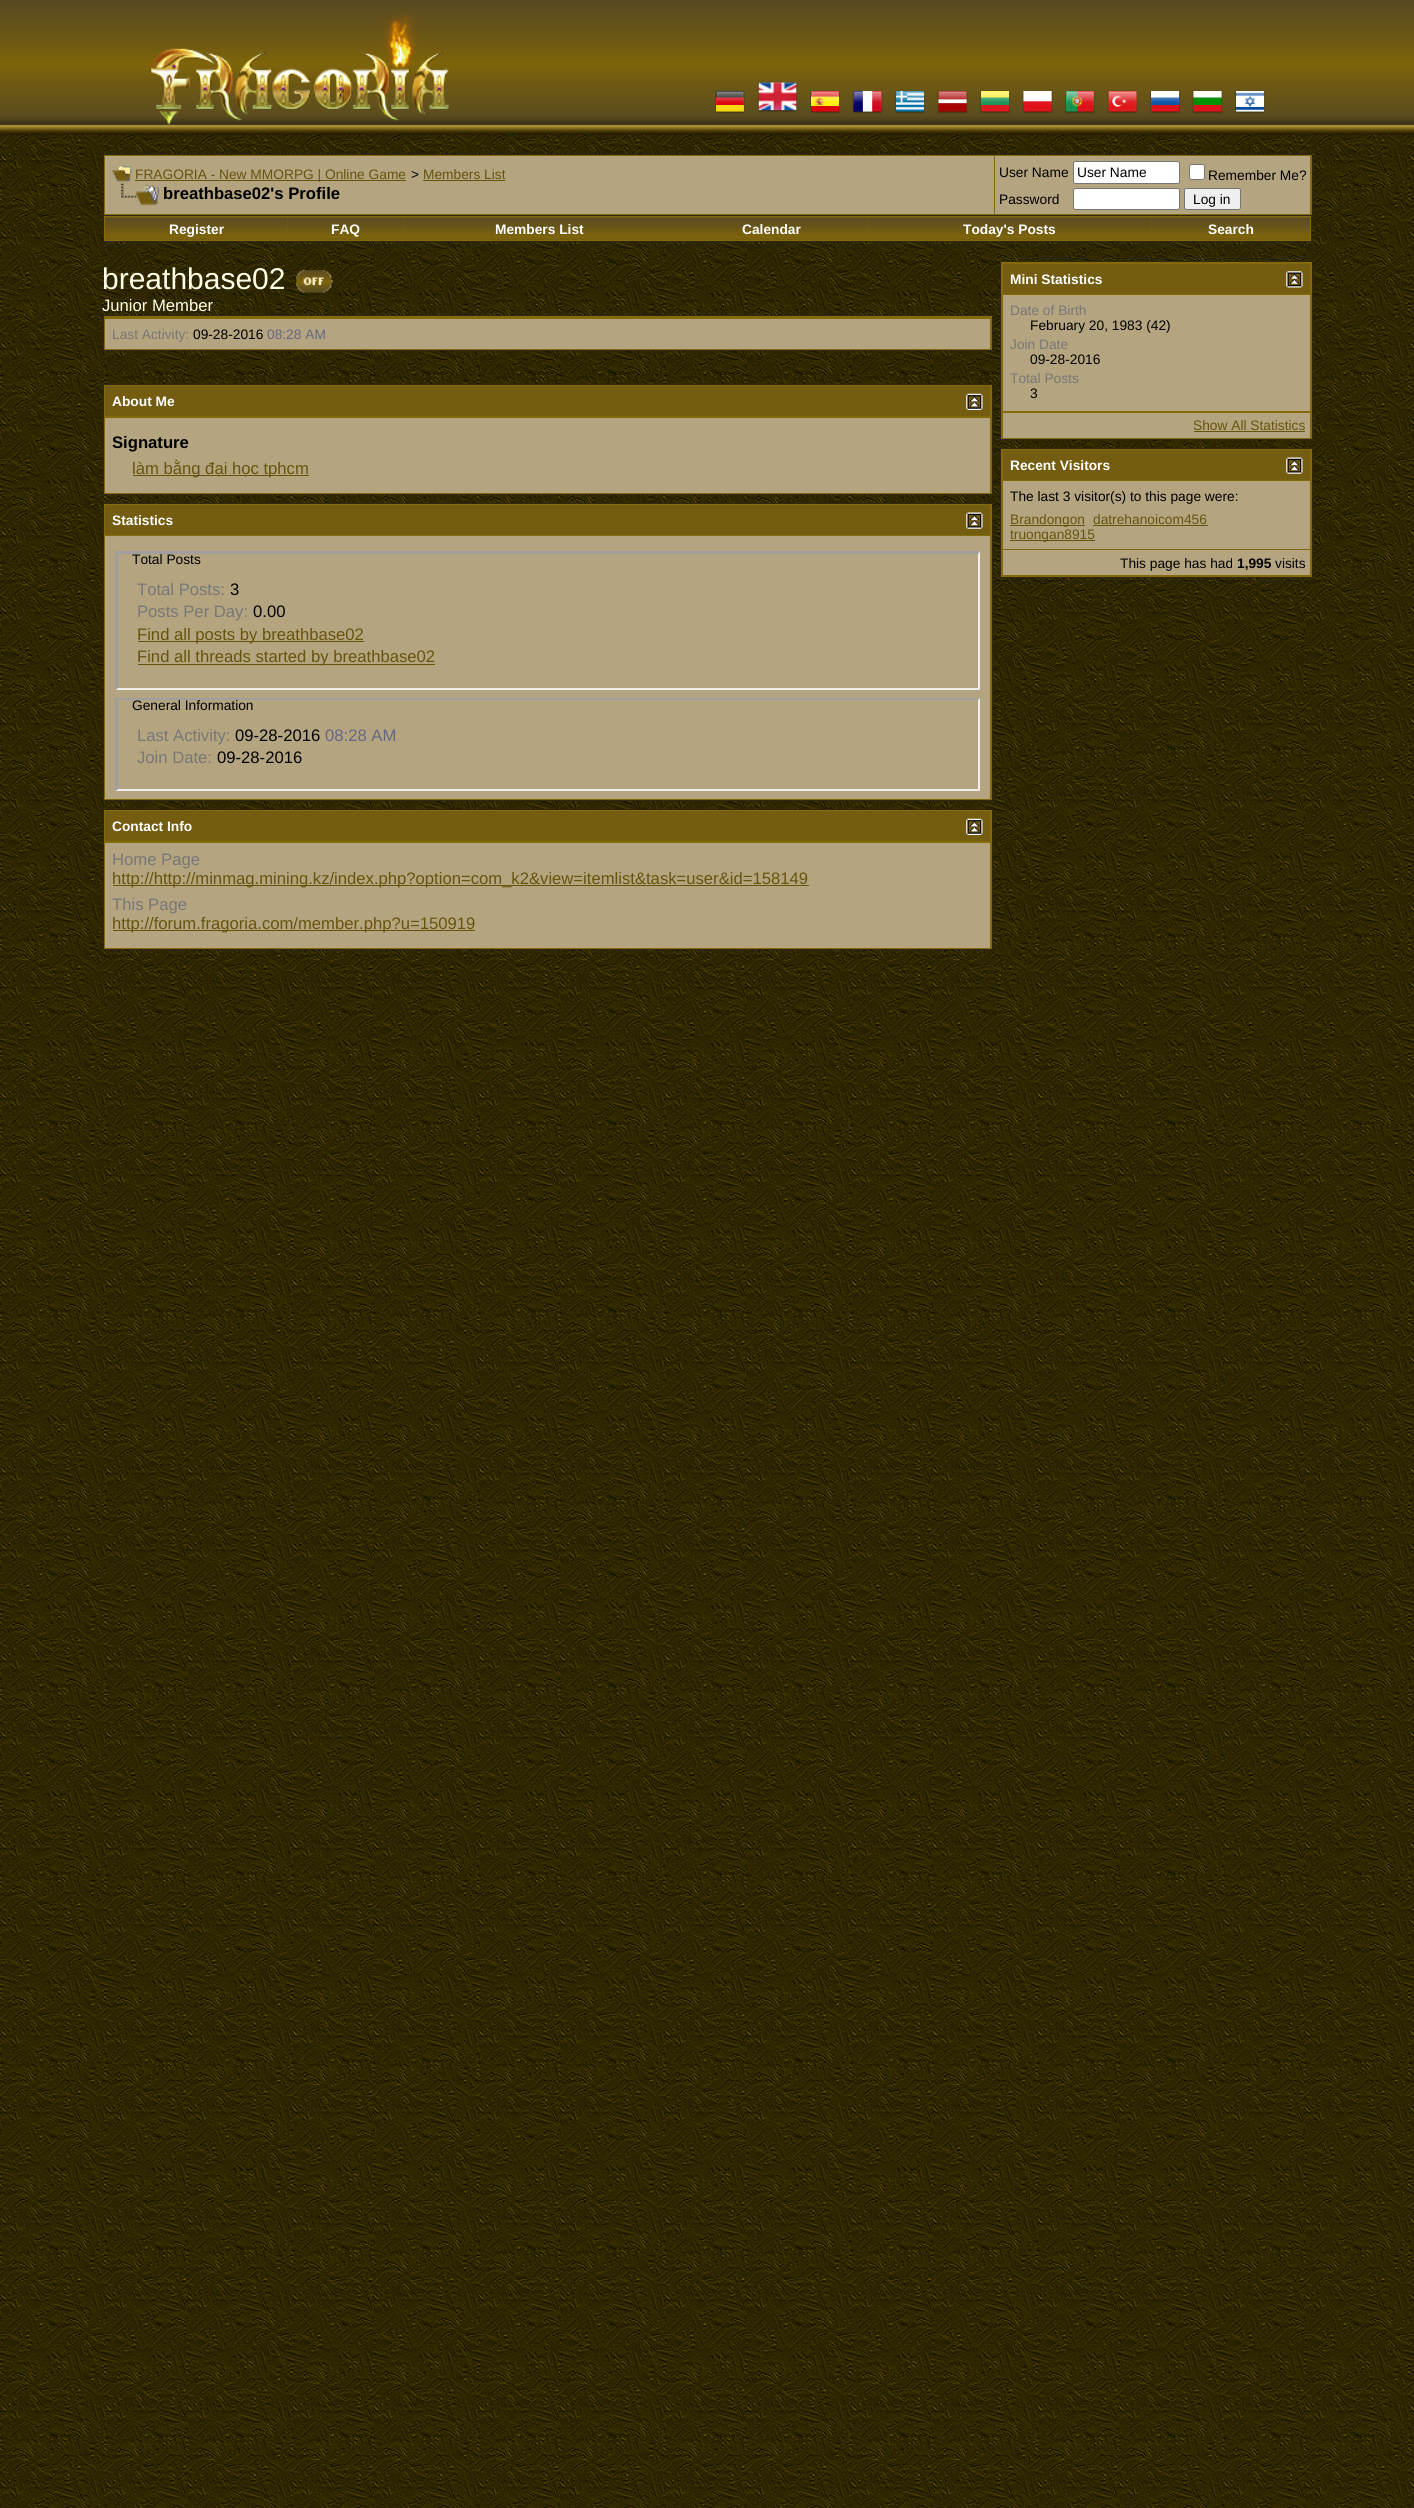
#include <cairo.h>
#include <math.h>
#include <stddef.h>


static void rgb(cairo_t *cr, int r, int g, int b)
{
	cairo_set_source_rgb(cr, r / 255.0, g / 255.0, b / 255.0);
}

static void face(cairo_t *cr, const char *family, double size, int italic, int bold)
{
	cairo_select_font_face(cr, family, italic ? CAIRO_FONT_SLANT_ITALIC : CAIRO_FONT_SLANT_NORMAL,
		bold ? CAIRO_FONT_WEIGHT_BOLD : CAIRO_FONT_WEIGHT_NORMAL);
	cairo_set_font_size(cr, size);
}

static void label(cairo_t *cr, double x, double y, const char *s)
{
	cairo_move_to(cr, x, y);
	cairo_show_text(cr, s);
}

static void rect(cairo_t *cr, double x, double y, double w, double h)
{
	cairo_rectangle(cr, x, y, w, h);
	cairo_fill(cr);
}

static void rrect(cairo_t *cr, double x, double y, double w, double h, double r)
{
	cairo_new_sub_path(cr);
	cairo_arc(cr, x + w - r, y + h - r, r, 0, M_PI / 2);
	cairo_arc(cr, x + r, y + h - r, r, M_PI / 2, M_PI);
	cairo_arc(cr, x + r, y + r, r, M_PI, 1.5 * M_PI);
	cairo_arc(cr, x + w - r, y + r, r, 1.5 * M_PI, 2 * M_PI);
	cairo_close_path(cr);
}

static void image(cairo_t *cr, const char *path, double x, double y, double w, double h)
{
	cairo_surface_t *image = cairo_image_surface_create_from_png(path);
	cairo_save(cr);
	cairo_set_source_surface(cr, image, x, y);
	cairo_rectangle(cr, x, y, w, h);
	cairo_fill(cr);
	cairo_restore(cr);
	cairo_surface_destroy(image);
}

static void draw(cairo_t *cr) {
	rgb(cr, 255, 255, 255);
	cairo_paint(cr);
	image(cr, "image0.png", 0, 135, 1414, 2373);
	image(cr, "image1.png", 0, 0, 1414, 135);
	image(cr, "image2.png", 150, 9, 299, 116);
	image(cr, "image3.png", 715, 90, 30, 24);
	image(cr, "image4.png", 757, 82, 41, 31);
	image(cr, "image5.png", 810, 90, 30, 24);
	image(cr, "image6.png", 852, 90, 31, 24);
	image(cr, "image7.png", 895, 90, 30, 24);
	image(cr, "image8.png", 937, 90, 31, 24);
	image(cr, "image9.png", 980, 90, 30, 24);
	image(cr, "image10.png", 1022, 90, 31, 24);
	image(cr, "image11.png", 1065, 90, 30, 24);
	image(cr, "image12.png", 1107, 90, 31, 24);
	image(cr, "image13.png", 1150, 90, 30, 24);
	image(cr, "image14.png", 1192, 90, 31, 24);
	image(cr, "image15.png", 1235, 90, 30, 24);
	rgb(cr, 133, 106, 11);
	cairo_rectangle(cr, 103.5, 154.5, 1209, 61);
	cairo_fill_preserve(cr);
	rgb(cr, 49, 40, 19);
	cairo_set_line_width(cr, 1);
	cairo_stroke(cr);
	rgb(cr, 180, 165, 128);
	rect(cr, 105, 156, 889, 58);
	image(cr, "image16.png", 112, 165, 20, 17);
	rgb(cr, 104, 83, 12);
	rect(cr, 135, 180, 271, 1);
	face(cr, "Liberation Sans", 13.75, 0, 0);
	label(cr, 135, 179, "FRAGORIA - New MMORPG | Online Game");
	rgb(cr, 0, 0, 0);
	label(cr, 411, 179, ">");
	rgb(cr, 104, 83, 12);
	label(cr, 423, 179, "Members List");
	rect(cr, 423, 180, 82, 1);
	image(cr, "image17.png", 121, 183, 38, 23);
	face(cr, "Liberation Sans", 16.65, 0, 1);
	rgb(cr, 0, 0, 0);
	label(cr, 163, 199, "breathbase02's Profile");
	rgb(cr, 180, 165, 128);
	rect(cr, 995, 156, 315, 58);
	face(cr, "Liberation Sans", 13.75, 0, 0);
	rgb(cr, 0, 0, 0);
	label(cr, 999, 177, "User Name");
	rgb(cr, 255, 255, 255);
	rrect(cr, 1073.5, 161.5, 106, 22, 2);
	cairo_fill_preserve(cr);
	rgb(cr, 118, 118, 118);
	cairo_stroke(cr);
	rgb(cr, 0, 0, 0);
	label(cr, 1077, 177, "User Name");
	rgb(cr, 255, 255, 255);
	rrect(cr, 1189.5, 164.5, 15, 15, 2);
	cairo_fill_preserve(cr);
	rgb(cr, 118, 118, 118);
	cairo_stroke(cr);
	rgb(cr, 0, 0, 0);
	label(cr, 1208, 180, "Remember Me?");
	label(cr, 999, 204, "Password");
	rgb(cr, 255, 255, 255);
	rrect(cr, 1073.5, 188.5, 106, 21, 2);
	cairo_fill_preserve(cr);
	rgb(cr, 118, 118, 118);
	cairo_stroke(cr);
	rgb(cr, 239, 239, 239);
	rrect(cr, 1184.5, 188.5, 56, 21, 2);
	cairo_fill_preserve(cr);
	rgb(cr, 118, 118, 118);
	cairo_stroke(cr);
	rgb(cr, 0, 0, 0);
	label(cr, 1193, 204, "Log in");
	rgb(cr, 133, 106, 11);
	rect(cr, 104, 216, 1207, 25);
	rgb(cr, 49, 40, 19);
	rect(cr, 1311, 216, 1, 27);
	rect(cr, 103, 241, 1210, 1);
	rect(cr, 103, 216, 1, 27);
	image(cr, "image18.png", 105, 217, 183, 23);
	face(cr, "Liberation Sans", 13.75, 0, 1);
	rgb(cr, 255, 255, 255);
	label(cr, 169, 234, "Register");
	image(cr, "image19.png", 287, 217, 117, 23);
	label(cr, 331, 234, "FAQ");
	image(cr, "image20.png", 404, 217, 271, 23);
	label(cr, 495, 234, "Members List");
	image(cr, "image21.png", 675, 217, 194, 23);
	label(cr, 742, 234, "Calendar");
	image(cr, "image22.png", 869, 217, 283, 23);
	label(cr, 963, 234, "Today's Posts");
	image(cr, "image23.png", 1151, 217, 159, 23);
	label(cr, 1208, 234, "Search");
	face(cr, "Liberation Sans", 30, 0, 0);
	rgb(cr, 255, 255, 233);
	label(cr, 102, 289, "breathbase02");
	image(cr, "image24.png", 296, 269, 37, 24);
	face(cr, "Liberation Sans", 16.65, 0, 0);
	label(cr, 102, 311, "Junior Member");
	rgb(cr, 133, 106, 11);
	cairo_rectangle(cr, 103.5, 315.5, 889, 35);
	cairo_fill_preserve(cr);
	rgb(cr, 49, 40, 19);
	cairo_stroke(cr);
	rgb(cr, 180, 165, 128);
	rect(cr, 105, 319, 885, 30);
	face(cr, "Liberation Sans", 13.75, 0, 0);
	rgb(cr, 119, 119, 119);
	label(cr, 112, 339, "Last Activity:");
	rgb(cr, 0, 0, 0);
	label(cr, 193, 339, "09-28-2016");
	rgb(cr, 102, 102, 134);
	label(cr, 267, 339, "08:28 AM");
	rgb(cr, 133, 106, 11);
	cairo_rectangle(cr, 103.5, 384.5, 889, 110);
	cairo_fill_preserve(cr);
	rgb(cr, 49, 40, 19);
	cairo_stroke(cr);
	rgb(cr, 116, 93, 17);
	rect(cr, 105, 386, 885, 30);
	face(cr, "Liberation Sans", 13.75, 0, 1);
	rgb(cr, 255, 255, 255);
	label(cr, 112, 406, "About Me");
	image(cr, "image25.png", 966, 393, 17, 17);
	rgb(cr, 180, 165, 128);
	rect(cr, 105, 418, 885, 75);
	face(cr, "Liberation Sans", 16.65, 0, 1);
	rgb(cr, 0, 0, 0);
	label(cr, 112, 448, "Signature");
	rgb(cr, 104, 83, 12);
	rect(cr, 133, 475, 176, 1);
	face(cr, "Liberation Sans", 16.65, 0, 0);
	label(cr, 132, 474, "làm bằng đại học tphcm");
	rgb(cr, 133, 106, 11);
	cairo_rectangle(cr, 103.5, 503.5, 889, 297);
	cairo_fill_preserve(cr);
	rgb(cr, 49, 40, 19);
	cairo_stroke(cr);
	rgb(cr, 116, 93, 17);
	rect(cr, 105, 505, 885, 30);
	face(cr, "Liberation Sans", 13.75, 0, 1);
	rgb(cr, 255, 255, 255);
	label(cr, 112, 525, "Statistics");
	image(cr, "image26.png", 966, 512, 17, 17);
	rgb(cr, 180, 165, 128);
	rect(cr, 105, 536, 885, 263);
	rgb(cr, 159, 159, 159);
	cairo_new_path(cr);
	cairo_move_to(cr, 115, 551);
	cairo_line_to(cr, 980, 551);
	cairo_line_to(cr, 978, 554);
	cairo_line_to(cr, 118, 554);
	cairo_close_path(cr);
	cairo_fill(cr);
	rgb(cr, 239, 239, 239);
	cairo_new_path(cr);
	cairo_move_to(cr, 980, 551);
	cairo_line_to(cr, 980, 690);
	cairo_line_to(cr, 978, 688);
	cairo_line_to(cr, 978, 554);
	cairo_close_path(cr);
	cairo_fill(cr);
	cairo_new_path(cr);
	cairo_move_to(cr, 980, 690);
	cairo_line_to(cr, 115, 690);
	cairo_line_to(cr, 118, 688);
	cairo_line_to(cr, 978, 688);
	cairo_close_path(cr);
	cairo_fill(cr);
	rgb(cr, 159, 159, 159);
	cairo_new_path(cr);
	cairo_move_to(cr, 115, 690);
	cairo_line_to(cr, 115, 551);
	cairo_line_to(cr, 118, 554);
	cairo_line_to(cr, 118, 688);
	cairo_close_path(cr);
	cairo_fill(cr);
	face(cr, "Liberation Sans", 13.75, 0, 0);
	rgb(cr, 0, 0, 0);
	label(cr, 132, 564, "Total Posts");
	face(cr, "Liberation Sans", 16.65, 0, 0);
	rgb(cr, 119, 119, 119);
	label(cr, 137, 595, "Total Posts:");
	rgb(cr, 0, 0, 0);
	label(cr, 230, 595, "3");
	rgb(cr, 119, 119, 119);
	label(cr, 137, 617, "Posts Per Day:");
	rgb(cr, 0, 0, 0);
	label(cr, 253, 617, "0.00");
	rgb(cr, 104, 83, 12);
	rect(cr, 138, 641, 226, 1);
	label(cr, 137, 640, "Find all posts by breathbase02");
	rect(cr, 138, 664, 297, 1);
	label(cr, 137, 662, "Find all threads started by breathbase02");
	rgb(cr, 159, 159, 159);
	cairo_new_path(cr);
	cairo_move_to(cr, 115, 698);
	cairo_line_to(cr, 980, 698);
	cairo_line_to(cr, 978, 700);
	cairo_line_to(cr, 118, 700);
	cairo_close_path(cr);
	cairo_fill(cr);
	rgb(cr, 239, 239, 239);
	cairo_new_path(cr);
	cairo_move_to(cr, 980, 698);
	cairo_line_to(cr, 980, 791);
	cairo_line_to(cr, 978, 789);
	cairo_line_to(cr, 978, 700);
	cairo_close_path(cr);
	cairo_fill(cr);
	cairo_new_path(cr);
	cairo_move_to(cr, 980, 791);
	cairo_line_to(cr, 115, 791);
	cairo_line_to(cr, 118, 789);
	cairo_line_to(cr, 978, 789);
	cairo_close_path(cr);
	cairo_fill(cr);
	rgb(cr, 159, 159, 159);
	cairo_new_path(cr);
	cairo_move_to(cr, 115, 791);
	cairo_line_to(cr, 115, 698);
	cairo_line_to(cr, 118, 700);
	cairo_line_to(cr, 118, 789);
	cairo_close_path(cr);
	cairo_fill(cr);
	face(cr, "Liberation Sans", 13.75, 0, 0);
	rgb(cr, 0, 0, 0);
	label(cr, 132, 710, "General Information");
	face(cr, "Liberation Sans", 16.65, 0, 0);
	rgb(cr, 119, 119, 119);
	label(cr, 137, 741, "Last Activity:");
	rgb(cr, 0, 0, 0);
	label(cr, 235, 741, "09-28-2016");
	rgb(cr, 102, 102, 134);
	label(cr, 325, 741, "08:28 AM");
	rgb(cr, 119, 119, 119);
	label(cr, 137, 763, "Join Date:");
	rgb(cr, 0, 0, 0);
	label(cr, 217, 763, "09-28-2016");
	rgb(cr, 133, 106, 11);
	cairo_rectangle(cr, 103.5, 809.5, 889, 140);
	cairo_fill_preserve(cr);
	rgb(cr, 49, 40, 19);
	cairo_stroke(cr);
	rgb(cr, 116, 93, 17);
	rect(cr, 105, 811, 885, 30);
	face(cr, "Liberation Sans", 13.75, 0, 1);
	rgb(cr, 255, 255, 255);
	label(cr, 112, 831, "Contact Info");
	image(cr, "image25.png", 966, 818, 17, 17);
	rgb(cr, 180, 165, 128);
	rect(cr, 105, 843, 885, 105);
	face(cr, "Liberation Sans", 16.65, 0, 0);
	rgb(cr, 119, 119, 119);
	label(cr, 112, 865, "Home Page");
	rgb(cr, 104, 83, 12);
	rect(cr, 113, 885, 696, 1);
	label(cr, 112, 884, "http://http://minmag.mining.kz/index.php?option=com_k2&view=itemlist&task=user&id=158149");
	rgb(cr, 119, 119, 119);
	label(cr, 112, 910, "This Page");
	rgb(cr, 104, 83, 12);
	rect(cr, 113, 930, 362, 1);
	label(cr, 112, 929, "http://forum.fragoria.com/member.php?u=150919");
	rgb(cr, 133, 106, 11);
	cairo_rectangle(cr, 1000.5, 261.5, 312, 178);
	cairo_fill_preserve(cr);
	rgb(cr, 49, 40, 19);
	cairo_stroke(cr);
	rgb(cr, 116, 93, 17);
	rect(cr, 1003, 264, 307, 30);
	face(cr, "Liberation Sans", 13.75, 0, 1);
	rgb(cr, 255, 255, 255);
	label(cr, 1010, 284, "Mini Statistics");
	image(cr, "image27.png", 1286, 271, 17, 17);
	rgb(cr, 180, 165, 128);
	rect(cr, 1003, 295, 307, 116);
	face(cr, "Liberation Sans", 13.75, 0, 0);
	rgb(cr, 119, 119, 119);
	label(cr, 1010, 315, "Date of Birth");
	rgb(cr, 0, 0, 0);
	label(cr, 1030, 330, "February 20, 1983 (42)");
	rgb(cr, 119, 119, 119);
	label(cr, 1010, 349, "Join Date");
	rgb(cr, 0, 0, 0);
	label(cr, 1030, 364, "09-28-2016");
	rgb(cr, 119, 119, 119);
	label(cr, 1010, 383, "Total Posts");
	rgb(cr, 0, 0, 0);
	label(cr, 1030, 398, "3");
	rgb(cr, 180, 165, 128);
	rect(cr, 1003, 413, 307, 25);
	rgb(cr, 104, 83, 12);
	label(cr, 1193, 430, "Show All Statistics");
	rect(cr, 1194, 431, 111, 1);
	rgb(cr, 133, 106, 11);
	cairo_rectangle(cr, 1000.5, 448.5, 312, 129);
	cairo_fill_preserve(cr);
	rgb(cr, 49, 40, 19);
	cairo_stroke(cr);
	rgb(cr, 116, 93, 17);
	rect(cr, 1003, 450, 307, 30);
	face(cr, "Liberation Sans", 13.75, 0, 1);
	rgb(cr, 255, 255, 255);
	label(cr, 1010, 470, "Recent Visitors");
	image(cr, "image28.png", 1286, 457, 17, 17);
	rgb(cr, 180, 165, 128);
	rect(cr, 1003, 481, 307, 68);
	face(cr, "Liberation Sans", 13.75, 0, 0);
	rgb(cr, 0, 0, 0);
	label(cr, 1010, 501, "The last 3 visitor(s) to this page were:");
	rgb(cr, 104, 83, 12);
	rect(cr, 1010, 525, 75, 1);
	label(cr, 1010, 524, "Brandongon");
	label(cr, 1093, 524, "datrehanoicom456");
	rect(cr, 1093, 525, 115, 1);
	rect(cr, 1010, 540, 85, 1);
	label(cr, 1010, 539, "truongan8915");
	rgb(cr, 180, 165, 128);
	rect(cr, 1003, 550, 307, 25);
	rgb(cr, 0, 0, 0);
	label(cr, 1120, 568, "This page has had");
	face(cr, "Liberation Sans", 13.75, 0, 1);
	label(cr, 1237, 568, "1,995");
	face(cr, "Liberation Sans", 13.75, 0, 0);
	label(cr, 1275, 568, "visits");
}

int main(void) {
	cairo_surface_t *surface = cairo_image_surface_create(CAIRO_FORMAT_RGB24, 1414, 2508);
	cairo_t *cr = cairo_create(surface);
	cairo_font_options_t *options = cairo_font_options_create();
	cairo_font_options_set_hint_metrics(options, CAIRO_HINT_METRICS_OFF);
	cairo_font_options_set_hint_style(options, CAIRO_HINT_STYLE_NONE);
	cairo_set_font_options(cr, options);
	cairo_set_miter_limit(cr, 4);
	draw(cr);
	cairo_surface_write_to_png(surface, "render.png");
	cairo_font_options_destroy(options);
	cairo_destroy(cr);
	cairo_surface_destroy(surface);
	return 0;
}
